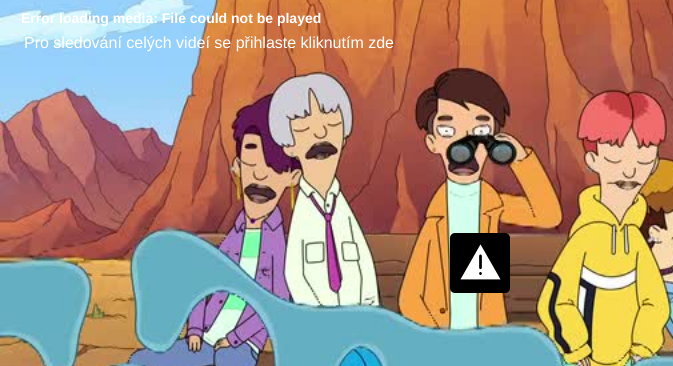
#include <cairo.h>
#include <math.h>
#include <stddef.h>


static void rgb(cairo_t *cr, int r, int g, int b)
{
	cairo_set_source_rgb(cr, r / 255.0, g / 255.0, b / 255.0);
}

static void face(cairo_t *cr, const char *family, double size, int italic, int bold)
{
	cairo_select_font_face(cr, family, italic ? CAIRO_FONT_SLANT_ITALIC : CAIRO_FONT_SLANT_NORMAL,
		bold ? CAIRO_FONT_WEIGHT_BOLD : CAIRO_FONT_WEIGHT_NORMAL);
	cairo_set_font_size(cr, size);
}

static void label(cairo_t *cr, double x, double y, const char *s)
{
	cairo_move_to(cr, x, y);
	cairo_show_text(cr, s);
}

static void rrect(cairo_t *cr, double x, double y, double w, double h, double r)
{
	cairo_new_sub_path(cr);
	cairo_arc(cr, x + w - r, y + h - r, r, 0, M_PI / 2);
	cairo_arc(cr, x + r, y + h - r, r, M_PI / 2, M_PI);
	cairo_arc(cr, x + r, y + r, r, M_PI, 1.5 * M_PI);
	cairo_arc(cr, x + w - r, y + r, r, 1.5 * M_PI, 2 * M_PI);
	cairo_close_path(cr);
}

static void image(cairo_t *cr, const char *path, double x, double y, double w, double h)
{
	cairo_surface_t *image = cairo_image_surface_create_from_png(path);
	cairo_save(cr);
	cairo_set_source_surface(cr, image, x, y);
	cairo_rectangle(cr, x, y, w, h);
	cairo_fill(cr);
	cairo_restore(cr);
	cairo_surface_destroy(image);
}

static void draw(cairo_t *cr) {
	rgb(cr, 255, 255, 255);
	cairo_paint(cr);
	image(cr, "image0.png", 0, 0, 673, 366);
	face(cr, "Liberation Sans", 14, 0, 1);
	rgb(cr, 255, 255, 255);
	label(cr, 21, 23, "Error loading media: File could not be played");
	face(cr, "Liberation Sans", 16, 0, 0);
	label(cr, 24, 48, "Pro sledování celých videí se přihlaste kliknutím zde");
	rgb(cr, 0, 0, 0);
	rrect(cr, 450, 233, 60, 60, 5);
	cairo_fill(cr);
	image(cr, "image1.png", 460, 244, 41, 36);
}

int main(void) {
	cairo_surface_t *surface = cairo_image_surface_create(CAIRO_FORMAT_RGB24, 673, 366);
	cairo_t *cr = cairo_create(surface);
	cairo_font_options_t *options = cairo_font_options_create();
	cairo_font_options_set_hint_metrics(options, CAIRO_HINT_METRICS_OFF);
	cairo_font_options_set_hint_style(options, CAIRO_HINT_STYLE_NONE);
	cairo_set_font_options(cr, options);
	cairo_set_miter_limit(cr, 4);
	draw(cr);
	cairo_surface_write_to_png(surface, "render.png");
	cairo_font_options_destroy(options);
	cairo_destroy(cr);
	cairo_surface_destroy(surface);
	return 0;
}
